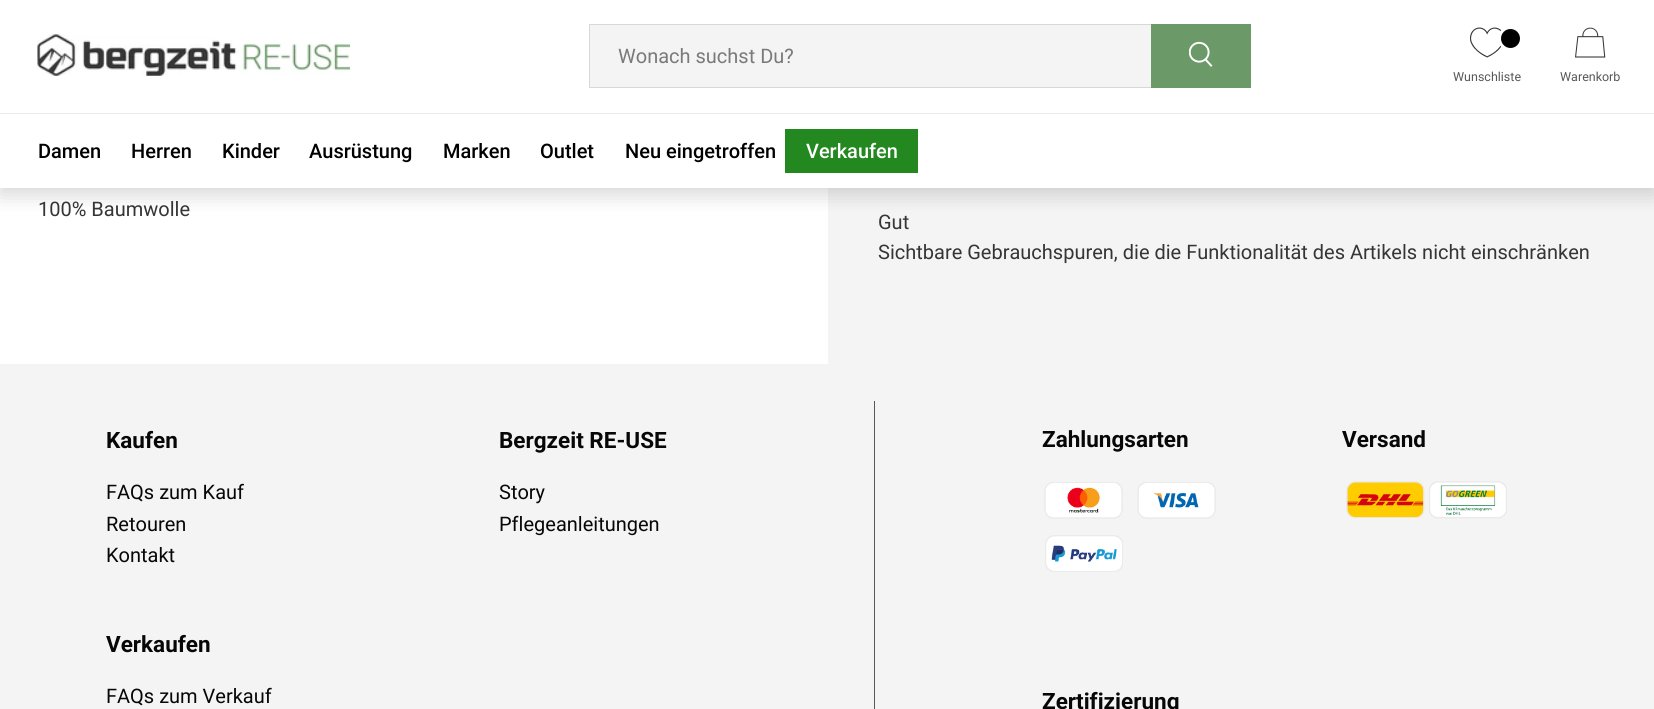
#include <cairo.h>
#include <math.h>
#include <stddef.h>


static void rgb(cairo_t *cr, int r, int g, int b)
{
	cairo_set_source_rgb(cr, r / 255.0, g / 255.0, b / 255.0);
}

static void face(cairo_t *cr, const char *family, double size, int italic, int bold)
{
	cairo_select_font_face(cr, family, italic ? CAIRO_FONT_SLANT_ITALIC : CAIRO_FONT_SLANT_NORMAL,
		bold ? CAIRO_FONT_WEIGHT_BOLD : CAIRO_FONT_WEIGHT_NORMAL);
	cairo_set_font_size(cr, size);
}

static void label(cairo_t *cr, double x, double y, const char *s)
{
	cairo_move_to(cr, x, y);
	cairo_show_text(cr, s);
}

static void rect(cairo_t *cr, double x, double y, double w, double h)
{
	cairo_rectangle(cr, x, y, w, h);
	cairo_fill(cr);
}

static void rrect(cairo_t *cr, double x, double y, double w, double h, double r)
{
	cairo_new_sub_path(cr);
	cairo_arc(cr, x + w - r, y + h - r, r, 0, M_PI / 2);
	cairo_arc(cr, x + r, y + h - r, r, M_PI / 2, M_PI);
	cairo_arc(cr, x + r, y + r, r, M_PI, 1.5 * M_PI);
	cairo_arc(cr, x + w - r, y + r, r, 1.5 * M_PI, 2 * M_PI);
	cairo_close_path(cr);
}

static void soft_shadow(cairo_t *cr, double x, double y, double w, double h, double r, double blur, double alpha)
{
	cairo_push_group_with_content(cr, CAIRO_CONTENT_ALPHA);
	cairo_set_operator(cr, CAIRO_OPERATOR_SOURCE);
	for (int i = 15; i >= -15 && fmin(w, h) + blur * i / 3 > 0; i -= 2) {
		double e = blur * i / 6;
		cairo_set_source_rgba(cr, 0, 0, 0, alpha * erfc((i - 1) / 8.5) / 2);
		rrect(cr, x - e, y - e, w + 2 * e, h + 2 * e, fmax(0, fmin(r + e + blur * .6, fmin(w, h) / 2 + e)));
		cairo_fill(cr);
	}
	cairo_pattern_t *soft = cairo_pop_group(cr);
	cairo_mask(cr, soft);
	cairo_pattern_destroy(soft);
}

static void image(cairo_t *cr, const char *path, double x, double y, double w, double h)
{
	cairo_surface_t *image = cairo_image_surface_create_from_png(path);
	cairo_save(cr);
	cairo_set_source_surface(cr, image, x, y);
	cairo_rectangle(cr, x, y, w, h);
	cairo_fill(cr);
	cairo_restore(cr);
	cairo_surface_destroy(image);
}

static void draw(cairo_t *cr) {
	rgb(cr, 255, 255, 255);
	cairo_paint(cr);
	rgb(cr, 244, 244, 244);
	rect(cr, 828, 188, 826, 176);
	rgb(cr, 0, 0, 0);
	soft_shadow(cr, 0, 6, 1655, 189, 0, 10, 0.16);
	rgb(cr, 255, 255, 255);
	rect(cr, 0, 0, 1654, 188);
	image(cr, "image0.png", 37, 34, 313, 42);
	rgb(cr, 244, 244, 244);
	rect(cr, 590, 25, 561, 62);
	cairo_rectangle(cr, 589.5, 24.5, 661, 63);
	rgb(cr, 216, 216, 216);
	cairo_set_line_width(cr, 1);
	cairo_stroke(cr);
	face(cr, "Roboto", 20, 0, 0);
	rgb(cr, 122, 122, 122);
	label(cr, 618, 63, "Wonach suchst Du?");
	rgb(cr, 107, 153, 104);
	rect(cr, 1151, 24, 100, 64);
	image(cr, "image1.png", 1189, 41, 24, 26);
	image(cr, "image2.png", 1470, 27, 32, 31);
	rgb(cr, 0, 0, 0);
	cairo_arc(cr, 1510.5, 38.5, 11, 0, 2 * M_PI);
	cairo_fill_preserve(cr);
	rgb(cr, 255, 255, 255);
	cairo_set_line_width(cr, 3);
	cairo_stroke(cr);
	face(cr, "Roboto", 12.5, 0, 0);
	rgb(cr, 88, 88, 88);
	label(cr, 1453, 81, "Wunschliste");
	image(cr, "image3.png", 1575, 27, 31, 31);
	label(cr, 1560, 81, "Warenkorb");
	rgb(cr, 234, 234, 234);
	rect(cr, 0, 113, 1654, 1);
	face(cr, "Roboto Medium", 20, 0, 0);
	rgb(cr, 0, 0, 0);
	label(cr, 38, 158, "Damen");
	label(cr, 131, 158, "Herren");
	label(cr, 222, 158, "Kinder");
	label(cr, 309, 158, "Ausrüstung");
	label(cr, 443, 158, "Marken");
	label(cr, 540, 158, "Outlet");
	label(cr, 625, 158, "Neu eingetroffen");
	rgb(cr, 36, 136, 33);
	rect(cr, 785, 129, 133, 44);
	rgb(cr, 255, 255, 255);
	label(cr, 806, 158, "Verkaufen");
	face(cr, "Roboto", 20, 0, 0);
	rgb(cr, 52, 53, 53);
	label(cr, 38, 216, "100% Baumwolle");
	label(cr, 878, 229, "Gut");
	label(cr, 878, 259, "Sichtbare Gebrauchspuren, die die Funktionalität des Artikels nicht einschränken");
	rgb(cr, 244, 244, 244);
	rect(cr, 0, 364, 1654, 345);
	rgb(cr, 88, 88, 88);
	rect(cr, 874, 401, 1, 308);
	face(cr, "Roboto", 22.5, 0, 1);
	rgb(cr, 7, 7, 7);
	label(cr, 106, 448, "Kaufen");
	face(cr, "Roboto", 20, 0, 0);
	label(cr, 106, 499, "FAQs zum Kauf");
	label(cr, 106, 531, "Retouren");
	label(cr, 106, 562, "Kontakt");
	face(cr, "Roboto", 22.5, 0, 1);
	label(cr, 499, 448, "Bergzeit RE-USE");
	face(cr, "Roboto", 20, 0, 0);
	label(cr, 499, 499, "Story");
	label(cr, 499, 531, "Pflegeanleitungen");
	face(cr, "Roboto", 22.5, 0, 1);
	label(cr, 106, 652, "Verkaufen");
	face(cr, "Roboto", 20, 0, 0);
	label(cr, 106, 703, "FAQs zum Verkauf");
	face(cr, "Roboto", 22.5, 0, 1);
	label(cr, 1042, 447, "Zahlungsarten");
	image(cr, "image4.png", 1044, 482, 79, 37);
	image(cr, "image5.png", 1137, 482, 79, 37);
	image(cr, "image6.png", 1045, 535, 78, 37);
	label(cr, 1342, 447, "Versand");
	image(cr, "image7.png", 1346, 481, 79, 37);
	image(cr, "image8.png", 1429, 481, 78, 38);
	label(cr, 1042, 709, "Zertifizierung");
}

int main(void) {
	cairo_surface_t *surface = cairo_image_surface_create(CAIRO_FORMAT_RGB24, 1654, 709);
	cairo_t *cr = cairo_create(surface);
	cairo_font_options_t *options = cairo_font_options_create();
	cairo_font_options_set_hint_metrics(options, CAIRO_HINT_METRICS_OFF);
	cairo_font_options_set_hint_style(options, CAIRO_HINT_STYLE_NONE);
	cairo_set_font_options(cr, options);
	cairo_set_miter_limit(cr, 4);
	draw(cr);
	cairo_surface_write_to_png(surface, "render.png");
	cairo_font_options_destroy(options);
	cairo_destroy(cr);
	cairo_surface_destroy(surface);
	return 0;
}
